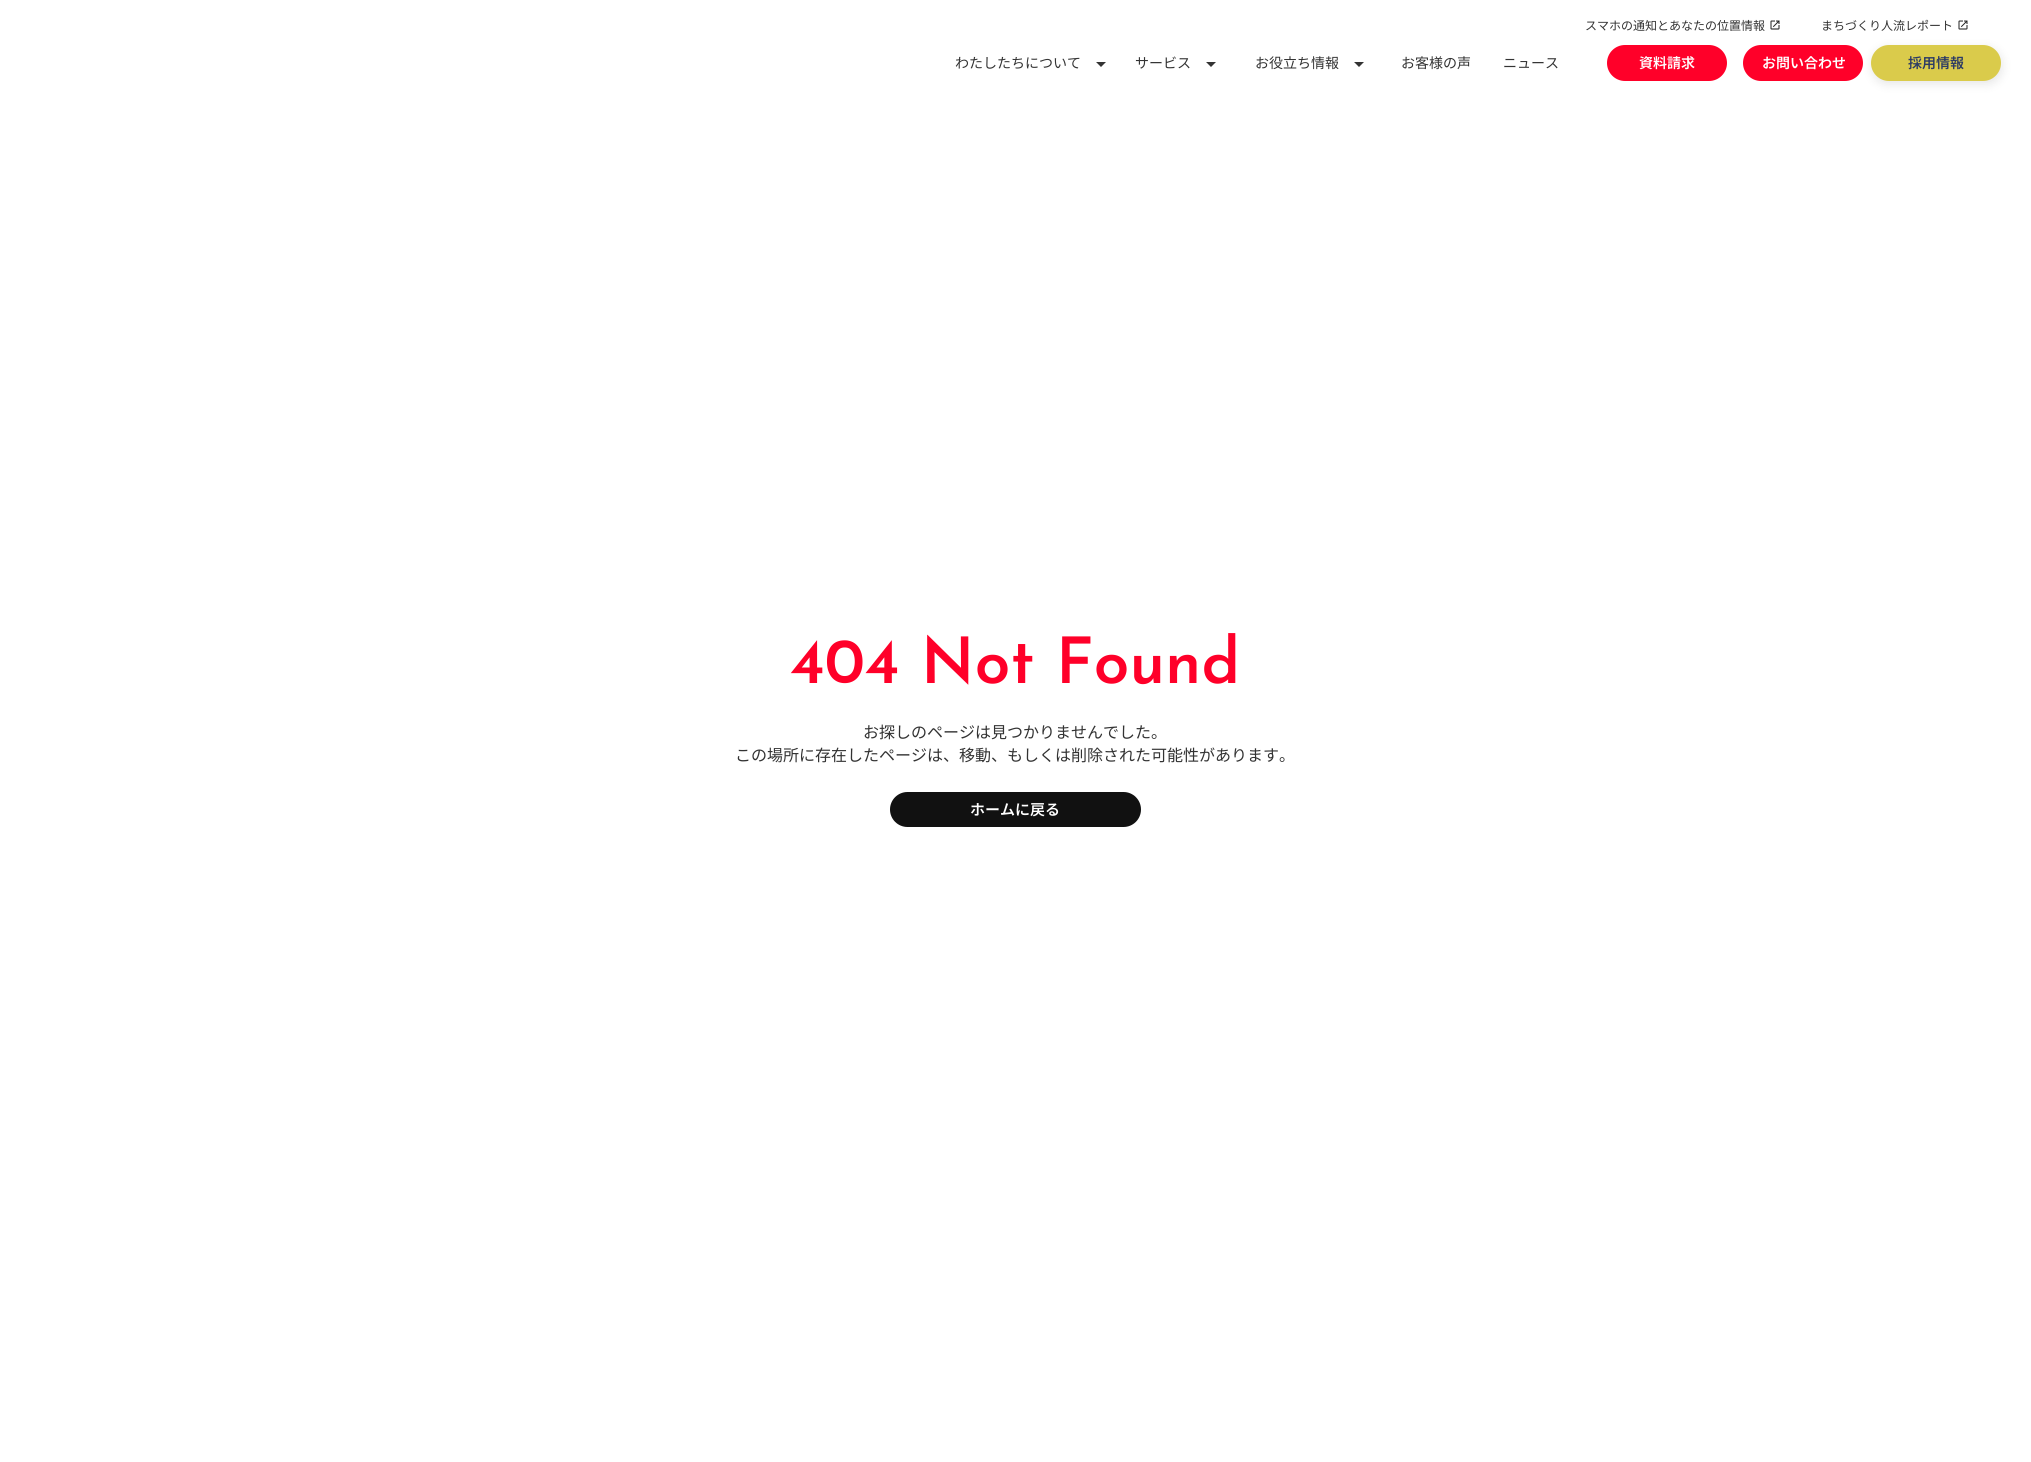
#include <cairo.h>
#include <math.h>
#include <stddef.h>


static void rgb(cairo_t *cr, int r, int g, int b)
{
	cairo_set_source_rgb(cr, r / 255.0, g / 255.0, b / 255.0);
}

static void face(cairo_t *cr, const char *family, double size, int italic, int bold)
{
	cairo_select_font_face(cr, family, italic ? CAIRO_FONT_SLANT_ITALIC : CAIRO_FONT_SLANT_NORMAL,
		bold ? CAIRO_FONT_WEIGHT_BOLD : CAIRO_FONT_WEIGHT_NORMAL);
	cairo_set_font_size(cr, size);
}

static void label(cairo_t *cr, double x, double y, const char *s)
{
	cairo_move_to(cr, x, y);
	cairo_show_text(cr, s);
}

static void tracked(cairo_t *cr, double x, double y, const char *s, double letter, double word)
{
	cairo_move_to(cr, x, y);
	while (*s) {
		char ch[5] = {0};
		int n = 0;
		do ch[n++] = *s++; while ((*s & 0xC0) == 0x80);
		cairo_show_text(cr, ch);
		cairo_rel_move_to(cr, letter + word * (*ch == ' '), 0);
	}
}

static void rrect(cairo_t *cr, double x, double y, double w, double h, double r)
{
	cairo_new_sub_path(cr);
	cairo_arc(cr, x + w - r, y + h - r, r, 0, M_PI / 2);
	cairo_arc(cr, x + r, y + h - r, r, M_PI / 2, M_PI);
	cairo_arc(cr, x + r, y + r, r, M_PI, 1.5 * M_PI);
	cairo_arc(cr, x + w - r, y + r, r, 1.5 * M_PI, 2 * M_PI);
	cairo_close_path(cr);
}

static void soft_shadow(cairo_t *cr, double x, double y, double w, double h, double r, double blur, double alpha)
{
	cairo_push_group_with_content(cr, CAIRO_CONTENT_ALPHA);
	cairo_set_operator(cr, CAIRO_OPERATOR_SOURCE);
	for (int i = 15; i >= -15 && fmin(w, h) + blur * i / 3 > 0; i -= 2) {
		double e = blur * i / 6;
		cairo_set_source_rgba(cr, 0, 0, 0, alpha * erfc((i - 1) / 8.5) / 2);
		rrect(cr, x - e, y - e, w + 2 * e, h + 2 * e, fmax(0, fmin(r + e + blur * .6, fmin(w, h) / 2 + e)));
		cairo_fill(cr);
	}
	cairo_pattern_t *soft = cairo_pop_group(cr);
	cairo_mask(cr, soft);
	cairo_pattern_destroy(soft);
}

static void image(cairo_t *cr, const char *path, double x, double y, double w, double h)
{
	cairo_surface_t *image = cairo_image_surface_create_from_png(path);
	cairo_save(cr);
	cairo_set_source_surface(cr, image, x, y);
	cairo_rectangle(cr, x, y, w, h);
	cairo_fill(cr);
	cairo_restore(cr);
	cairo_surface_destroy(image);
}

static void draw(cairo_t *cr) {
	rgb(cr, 255, 255, 255);
	cairo_paint(cr);
	face(cr, "Noto Sans JP", 12, 0, 0);
	rgb(cr, 51, 51, 51);
	label(cr, 1585, 30, "スマホの通知とあなたの位置情報");
	image(cr, "image0.png", 1770, 20, 10, 10);
	label(cr, 1821, 30, "まちづくり人流レポート");
	image(cr, "image0.png", 1958, 20, 10, 10);
	face(cr, "Noto Sans JP", 14, 0, 0);
	label(cr, 955, 68, "わたしたちについて");
	cairo_new_path(cr);
	cairo_move_to(cr, 1106, 62);
	cairo_line_to(cr, 1101, 67);
	cairo_line_to(cr, 1096, 62);
	cairo_close_path(cr);
	cairo_fill(cr);
	label(cr, 1135, 68, "サービス");
	cairo_new_path(cr);
	cairo_move_to(cr, 1216, 62);
	cairo_line_to(cr, 1211, 67);
	cairo_line_to(cr, 1206, 62);
	cairo_close_path(cr);
	cairo_fill(cr);
	label(cr, 1255, 68, "お役立ち情報");
	cairo_new_path(cr);
	cairo_move_to(cr, 1364, 62);
	cairo_line_to(cr, 1359, 67);
	cairo_line_to(cr, 1354, 62);
	cairo_close_path(cr);
	cairo_fill(cr);
	label(cr, 1401, 68, "お客様の声");
	label(cr, 1503, 68, "ニュース");
	rgb(cr, 255, 0, 41);
	rrect(cr, 1607, 45, 120, 36, 18);
	cairo_fill(cr);
	face(cr, "Noto Sans JP SemiBold", 14, 0, 0);
	rgb(cr, 255, 255, 255);
	label(cr, 1639, 68, "資料請求");
	rgb(cr, 255, 0, 41);
	rrect(cr, 1743, 45, 120, 36, 18);
	cairo_fill(cr);
	rgb(cr, 255, 255, 255);
	label(cr, 1762, 68, "お問い合わせ");
	rgb(cr, 0, 0, 0);
	soft_shadow(cr, 1872, 48, 130, 36, 18, 5, 0.1);
	rgb(cr, 218, 203, 75);
	rrect(cr, 1871, 45, 130, 36, 18);
	cairo_fill(cr);
	rgb(cr, 45, 60, 100);
	label(cr, 1908, 68, "採用情報");
	face(cr, "Josefin Sans SemiBold", 64, 0, 0);
	rgb(cr, 255, 0, 41);
	tracked(cr, 790, 683, "404 Not Found", 0, 1);
	face(cr, "Noto Sans JP", 16, 0, 0);
	rgb(cr, 51, 51, 51);
	label(cr, 863, 738, "お探しのページは見つかりませんでした。");
	label(cr, 735, 761, "この場所に存在したページは、移動、もしくは削除された可能性があります。");
	rgb(cr, 17, 17, 17);
	rrect(cr, 890, 792, 251, 35, 17.5);
	cairo_fill(cr);
	face(cr, "Noto Sans JP SemiBold", 15, 0, 0);
	rgb(cr, 255, 255, 255);
	label(cr, 970, 815, "ホームに戻る");
}

int main(void) {
	cairo_surface_t *surface = cairo_image_surface_create(CAIRO_FORMAT_RGB24, 2031, 1462);
	cairo_t *cr = cairo_create(surface);
	cairo_font_options_t *options = cairo_font_options_create();
	cairo_font_options_set_hint_metrics(options, CAIRO_HINT_METRICS_OFF);
	cairo_font_options_set_hint_style(options, CAIRO_HINT_STYLE_NONE);
	cairo_set_font_options(cr, options);
	cairo_set_miter_limit(cr, 4);
	draw(cr);
	cairo_surface_write_to_png(surface, "render.png");
	cairo_font_options_destroy(options);
	cairo_destroy(cr);
	cairo_surface_destroy(surface);
	return 0;
}
